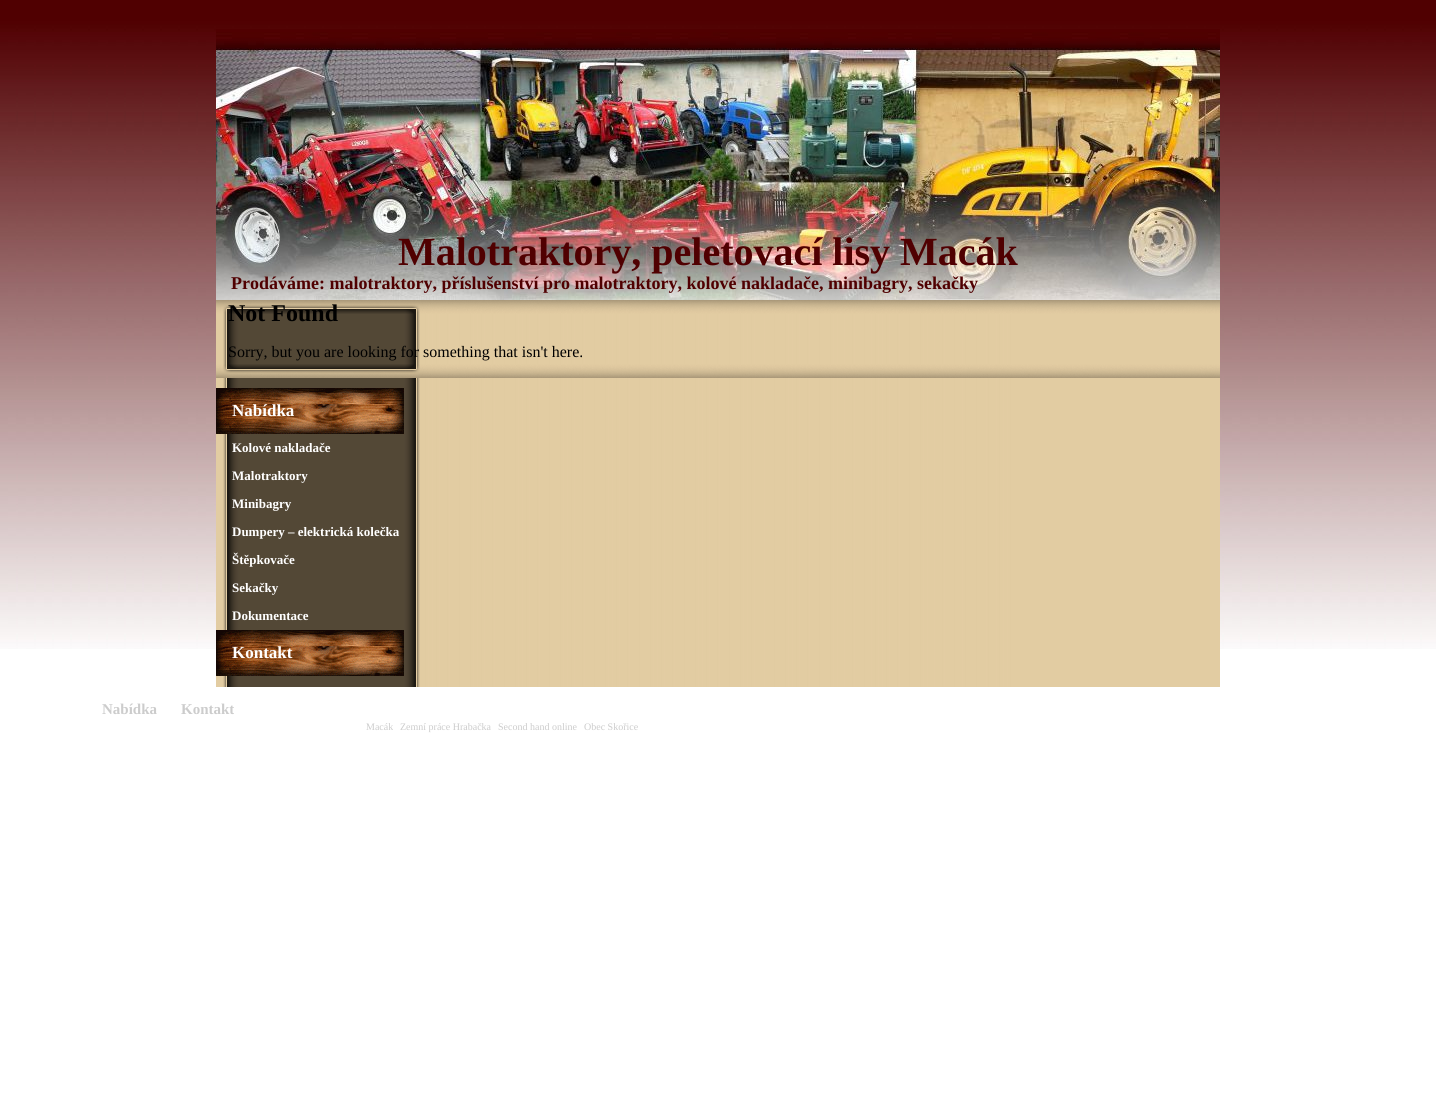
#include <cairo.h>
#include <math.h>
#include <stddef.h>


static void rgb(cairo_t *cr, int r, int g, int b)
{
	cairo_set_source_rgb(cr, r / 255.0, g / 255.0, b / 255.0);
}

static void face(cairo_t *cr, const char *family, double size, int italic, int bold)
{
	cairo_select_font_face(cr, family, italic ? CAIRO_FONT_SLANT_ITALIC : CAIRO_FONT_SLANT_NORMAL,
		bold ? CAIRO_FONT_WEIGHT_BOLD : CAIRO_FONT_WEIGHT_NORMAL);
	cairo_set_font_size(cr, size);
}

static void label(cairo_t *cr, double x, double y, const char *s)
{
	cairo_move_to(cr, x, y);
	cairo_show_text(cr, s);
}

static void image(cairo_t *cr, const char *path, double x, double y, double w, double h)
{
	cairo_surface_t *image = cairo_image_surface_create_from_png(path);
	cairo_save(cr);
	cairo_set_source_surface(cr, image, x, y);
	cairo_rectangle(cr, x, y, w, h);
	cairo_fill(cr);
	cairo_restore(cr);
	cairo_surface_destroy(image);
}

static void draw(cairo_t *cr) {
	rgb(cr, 255, 255, 255);
	cairo_paint(cr);
	image(cr, "image0.png", 0, 0, 1436, 649);
	image(cr, "image1.png", 216, 29, 1004, 271);
	face(cr, "Liberation Serif", 40, 0, 1);
	rgb(cr, 80, 0, 1);
	label(cr, 398, 265, "Malotraktory, peletovací lisy Macák");
	face(cr, "Liberation Serif", 18, 0, 1);
	label(cr, 231, 289, "Prodáváme: malotraktory, příslušenství pro malotraktory, kolové nakladače, minibagry, sekačky");
	image(cr, "image2.png", 216, 314, 1004, 373);
	image(cr, "image3.png", 216, 300, 1004, 14);
	image(cr, "image4.png", 216, 364, 1004, 14);
	face(cr, "Liberation Serif", 24, 0, 1);
	rgb(cr, 0, 0, 0);
	label(cr, 228, 321, "Not Found");
	face(cr, "Liberation Serif", 16, 0, 0);
	label(cr, 228, 357, "Sorry, but you are looking for something that isn't here.");
	image(cr, "image5.png", 216, 388, 188, 46);
	face(cr, "Liberation Serif", 17, 0, 1);
	rgb(cr, 255, 255, 255);
	label(cr, 232, 416, "Nabídka");
	face(cr, "Liberation Serif", 13, 0, 1);
	label(cr, 232, 452, "Kolové nakladače");
	label(cr, 232, 480, "Malotraktory");
	label(cr, 232, 508, "Minibagry");
	label(cr, 232, 536, "Dumpery – elektrická kolečka");
	label(cr, 232, 564, "Štěpkovače");
	label(cr, 232, 592, "Sekačky");
	label(cr, 232, 620, "Dokumentace");
	image(cr, "image5.png", 216, 630, 188, 46);
	face(cr, "Liberation Serif", 17, 0, 1);
	label(cr, 232, 658, "Kontakt");
	face(cr, "Liberation Serif", 15, 0, 1);
	rgb(cr, 204, 204, 204);
	label(cr, 102, 714, "Nabídka");
	label(cr, 181, 714, "Kontakt");
	face(cr, "Liberation Serif", 10, 0, 0);
	label(cr, 366, 730, "Macák");
	label(cr, 400, 730, "Zemní práce Hrabačka");
	label(cr, 498, 730, "Second hand online");
	label(cr, 584, 730, "Obec Skořice");
}

int main(void) {
	cairo_surface_t *surface = cairo_image_surface_create(CAIRO_FORMAT_RGB24, 1436, 1120);
	cairo_t *cr = cairo_create(surface);
	cairo_font_options_t *options = cairo_font_options_create();
	cairo_font_options_set_hint_metrics(options, CAIRO_HINT_METRICS_OFF);
	cairo_font_options_set_hint_style(options, CAIRO_HINT_STYLE_NONE);
	cairo_set_font_options(cr, options);
	cairo_set_miter_limit(cr, 4);
	draw(cr);
	cairo_surface_write_to_png(surface, "render.png");
	cairo_font_options_destroy(options);
	cairo_destroy(cr);
	cairo_surface_destroy(surface);
	return 0;
}
